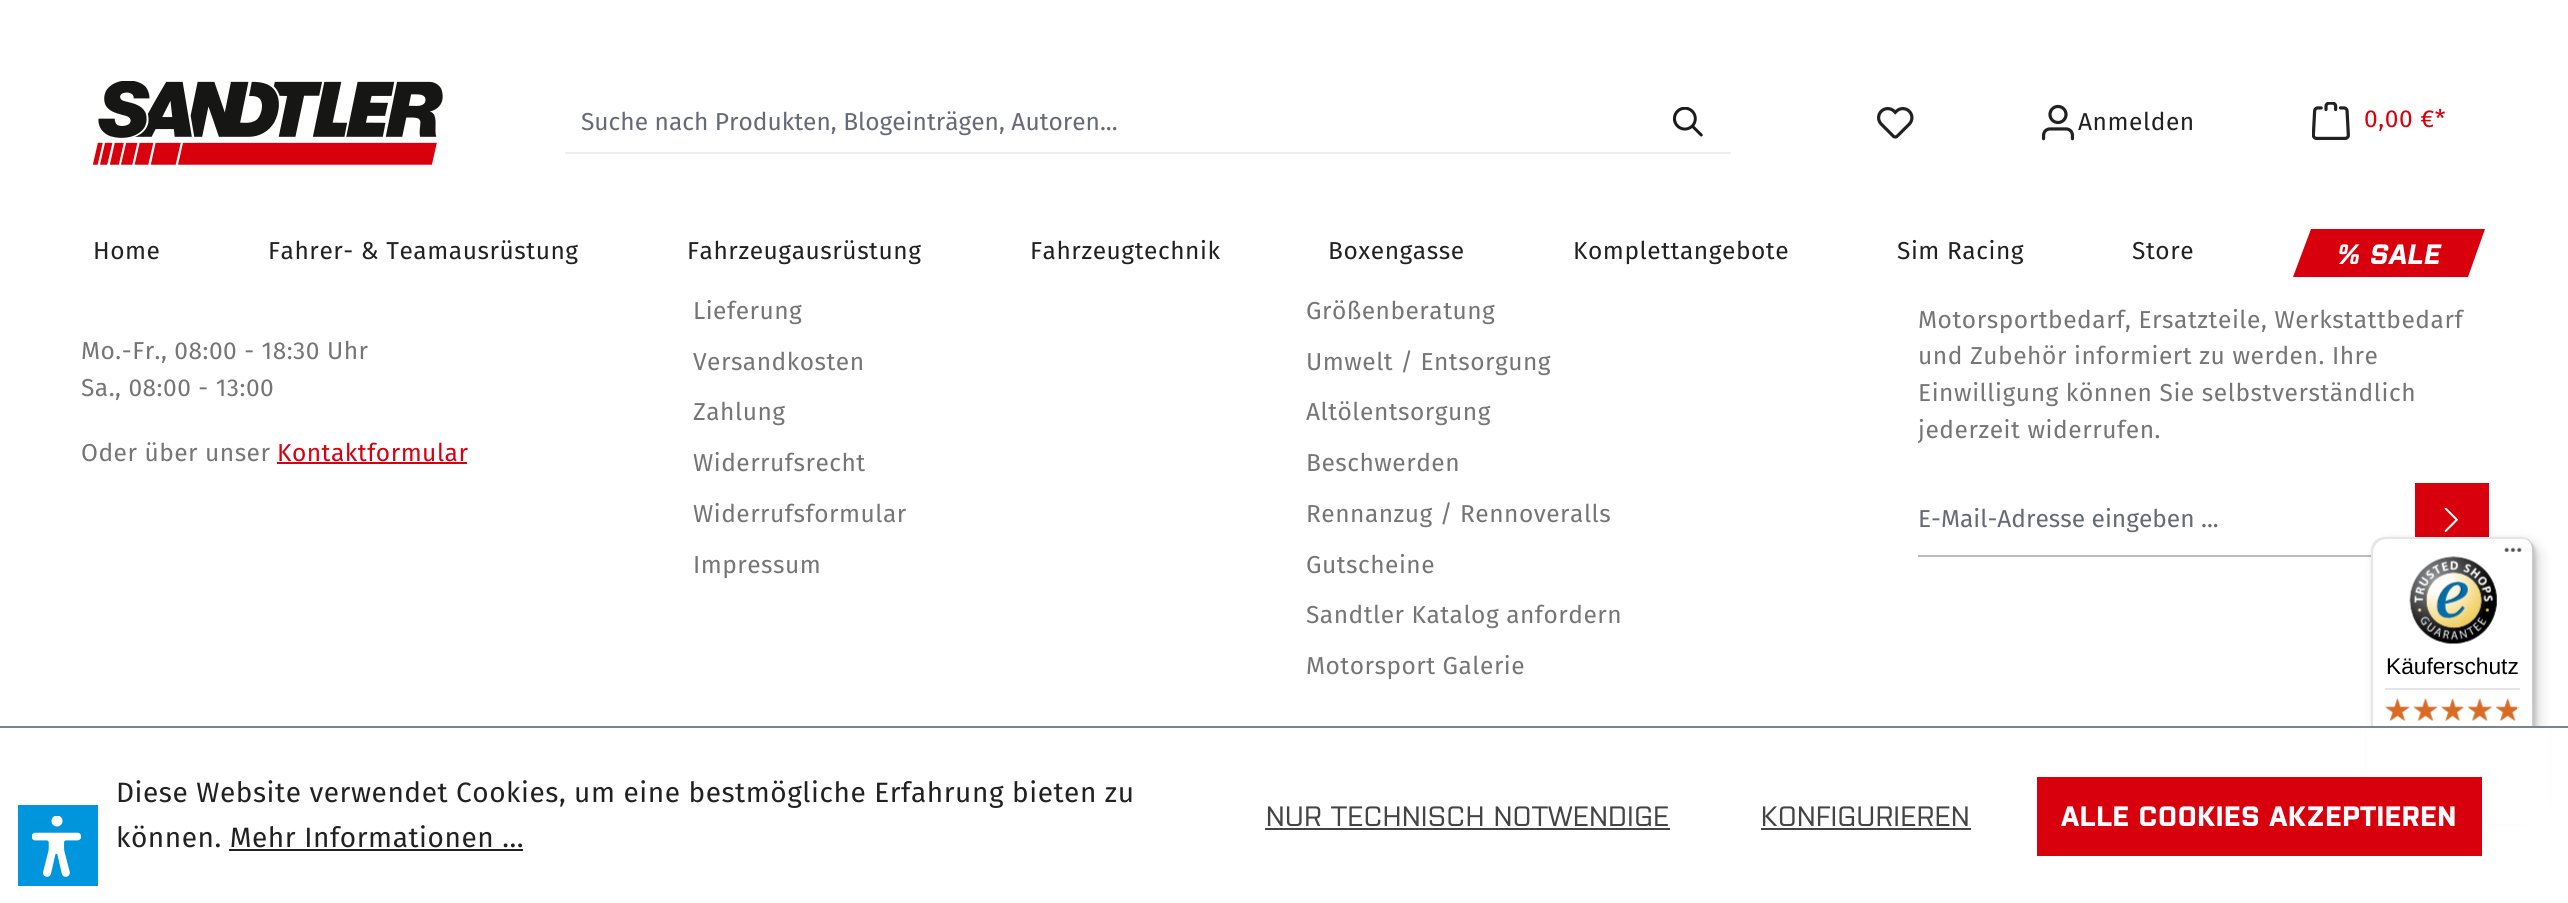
#include <cairo.h>
#include <math.h>
#include <stddef.h>


static void rgb(cairo_t *cr, int r, int g, int b)
{
	cairo_set_source_rgb(cr, r / 255.0, g / 255.0, b / 255.0);
}

static void face(cairo_t *cr, const char *family, double size, int italic, int bold)
{
	cairo_select_font_face(cr, family, italic ? CAIRO_FONT_SLANT_ITALIC : CAIRO_FONT_SLANT_NORMAL,
		bold ? CAIRO_FONT_WEIGHT_BOLD : CAIRO_FONT_WEIGHT_NORMAL);
	cairo_set_font_size(cr, size);
}

static void label(cairo_t *cr, double x, double y, const char *s)
{
	cairo_move_to(cr, x, y);
	cairo_show_text(cr, s);
}

static void tracked(cairo_t *cr, double x, double y, const char *s, double letter, double word)
{
	cairo_move_to(cr, x, y);
	while (*s) {
		char ch[5] = {0};
		int n = 0;
		do ch[n++] = *s++; while ((*s & 0xC0) == 0x80);
		cairo_show_text(cr, ch);
		cairo_rel_move_to(cr, letter + word * (*ch == ' '), 0);
	}
}

static void rect(cairo_t *cr, double x, double y, double w, double h)
{
	cairo_rectangle(cr, x, y, w, h);
	cairo_fill(cr);
}

static void rrect(cairo_t *cr, double x, double y, double w, double h, double r)
{
	cairo_new_sub_path(cr);
	cairo_arc(cr, x + w - r, y + h - r, r, 0, M_PI / 2);
	cairo_arc(cr, x + r, y + h - r, r, M_PI / 2, M_PI);
	cairo_arc(cr, x + r, y + r, r, M_PI, 1.5 * M_PI);
	cairo_arc(cr, x + w - r, y + r, r, 1.5 * M_PI, 2 * M_PI);
	cairo_close_path(cr);
}

static void soft_shadow(cairo_t *cr, double x, double y, double w, double h, double r, double blur, double alpha)
{
	cairo_push_group_with_content(cr, CAIRO_CONTENT_ALPHA);
	cairo_set_operator(cr, CAIRO_OPERATOR_SOURCE);
	for (int i = 15; i >= -15 && fmin(w, h) + blur * i / 3 > 0; i -= 2) {
		double e = blur * i / 6;
		cairo_set_source_rgba(cr, 0, 0, 0, alpha * erfc((i - 1) / 8.5) / 2);
		rrect(cr, x - e, y - e, w + 2 * e, h + 2 * e, fmax(0, fmin(r + e + blur * .6, fmin(w, h) / 2 + e)));
		cairo_fill(cr);
	}
	cairo_pattern_t *soft = cairo_pop_group(cr);
	cairo_mask(cr, soft);
	cairo_pattern_destroy(soft);
}

static void image(cairo_t *cr, const char *path, double x, double y, double w, double h)
{
	cairo_surface_t *image = cairo_image_surface_create_from_png(path);
	cairo_save(cr);
	cairo_set_source_surface(cr, image, x, y);
	cairo_rectangle(cr, x, y, w, h);
	cairo_fill(cr);
	cairo_restore(cr);
	cairo_surface_destroy(image);
}

static void draw(cairo_t *cr) {
	rgb(cr, 255, 255, 255);
	cairo_paint(cr);
	image(cr, "image0.png", 93, 81, 350, 84);
	rgb(cr, 238, 238, 238);
	rect(cr, 565, 152, 1166, 2);
	face(cr, "Fira Sans", 24.5, 0, 0);
	rgb(cr, 102, 105, 119);
	label(cr, 581, 130, "Suche nach Produkten, Blogeinträgen, Autoren...");
	image(cr, "image1.png", 1673, 107, 30, 30);
	image(cr, "image2.png", 1877, 107, 37, 32);
	image(cr, "image3.png", 2041, 104, 34, 37);
	rgb(cr, 33, 33, 33);
	tracked(cr, 2078, 130, "Anmelden", 0.55, 0);
	image(cr, "image4.png", 2312, 102, 38, 38);
	rgb(cr, 217, 0, 13);
	tracked(cr, 2364, 127, "0,00 €*", 0.55, 0);
	rgb(cr, 33, 33, 33);
	tracked(cr, 93, 259, "Home", 0.55, 0);
	tracked(cr, 268, 259, "Fahrer- & Teamausrüstung", 0.55, 0);
	tracked(cr, 687, 259, "Fahrzeugausrüstung", 0.55, 0);
	tracked(cr, 1030, 259, "Fahrzeugtechnik", 0.55, 0);
	tracked(cr, 1328, 259, "Boxengasse", 0.55, 0);
	tracked(cr, 1573, 259, "Komplettangebote", 0.55, 0);
	tracked(cr, 1897, 259, "Sim Racing", 0.55, 0);
	tracked(cr, 2132, 259, "Store", 0.55, 0);
	rgb(cr, 217, 0, 13);
	cairo_new_path(cr);
	cairo_move_to(cr, 2311, 229);
	cairo_line_to(cr, 2485, 229);
	cairo_line_to(cr, 2468, 277);
	cairo_line_to(cr, 2293, 277);
	cairo_close_path(cr);
	cairo_fill(cr);
	face(cr, "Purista", 28, 1, 1);
	rgb(cr, 255, 255, 255);
	tracked(cr, 2337, 264, "% SALE", 0.55, 0);
	face(cr, "Fira Sans", 24.5, 0, 0);
	rgb(cr, 117, 117, 117);
	tracked(cr, 81, 359, "Mo.-Fr., 08:00 - 18:30 Uhr", 0.5, 0);
	tracked(cr, 81, 396, "Sa., 08:00 - 13:00", 0.5, 0);
	tracked(cr, 81, 461, "Oder über unser", 0.5, 0);
	rgb(cr, 217, 0, 13);
	tracked(cr, 277, 461, "Kontaktformular", 0.5, 0);
	rect(cr, 277, 462, 190, 2);
	rgb(cr, 117, 117, 117);
	tracked(cr, 693, 319, "Lieferung", 0.5, 0);
	tracked(cr, 693, 370, "Versandkosten", 0.5, 0);
	tracked(cr, 693, 420, "Zahlung", 0.5, 0);
	tracked(cr, 693, 471, "Widerrufsrecht", 0.5, 0);
	tracked(cr, 693, 522, "Widerrufsformular", 0.5, 0);
	tracked(cr, 693, 573, "Impressum", 0.5, 0);
	tracked(cr, 1306, 319, "Größenberatung", 0.5, 0);
	tracked(cr, 1306, 370, "Umwelt / Entsorgung", 0.5, 0);
	tracked(cr, 1306, 420, "Altölentsorgung", 0.5, 0);
	tracked(cr, 1306, 471, "Beschwerden", 0.5, 0);
	tracked(cr, 1306, 522, "Rennanzug / Rennoveralls", 0.5, 0);
	tracked(cr, 1306, 573, "Gutscheine", 0.5, 0);
	tracked(cr, 1306, 623, "Sandtler Katalog anfordern", 0.5, 0);
	tracked(cr, 1306, 674, "Motorsport Galerie", 0.5, 0);
	tracked(cr, 1918, 328, "Motorsportbedarf, Ersatzteile, Werkstattbedarf", 0.55, 0);
	tracked(cr, 1918, 364, "und Zubehör informiert zu werden. Ihre", 0.55, 0);
	tracked(cr, 1918, 401, "Einwilligung können Sie selbstverständlich", 0.55, 0);
	tracked(cr, 1918, 438, "jederzeit widerrufen.", 0.55, 0);
	rgb(cr, 189, 189, 189);
	rect(cr, 1918, 555, 453, 2);
	rgb(cr, 102, 105, 119);
	label(cr, 1918, 527, "E-Mail-Adresse eingeben ...");
	rgb(cr, 217, 0, 13);
	rect(cr, 2415, 483, 74, 54);
	image(cr, "image5.png", 2444, 508, 14, 24);
	rgb(cr, 0, 0, 0);
	soft_shadow(cr, 2377, 543, 162, 271, 14, 7, 0.15);
	soft_shadow(cr, 2373, 539, 163, 271, 14, 2, 0.15);
	rgb(cr, 255, 255, 255);
	rrect(cr, 2371, 537, 163, 272, 14);
	cairo_fill(cr);
	cairo_set_source_rgba(cr, 0, 0, 0, 0.1);
	cairo_new_path(cr);
	cairo_move_to(cr, 2387, 539);
	cairo_line_to(cr, 2522, 539);
	cairo_curve_to(cr, 2525, 539, 2529, 540, 2531, 543);
	cairo_curve_to(cr, 2529, 539, 2525, 537, 2520, 537);
	cairo_line_to(cr, 2385, 537);
	cairo_curve_to(cr, 2377, 537, 2371, 543, 2371, 551);
	cairo_line_to(cr, 2371, 795);
	cairo_curve_to(cr, 2371, 801, 2374, 805, 2379, 808);
	cairo_curve_to(cr, 2375, 805, 2373, 801, 2373, 796);
	cairo_line_to(cr, 2373, 553);
	cairo_curve_to(cr, 2373, 545, 2379, 539, 2387, 539);
	cairo_close_path(cr);
	cairo_fill(cr);
	cairo_set_source_rgba(cr, 0, 0, 0, 0.2);
	cairo_new_path(cr);
	cairo_move_to(cr, 2372, 800);
	cairo_curve_to(cr, 2374, 805, 2379, 809, 2385, 809);
	cairo_line_to(cr, 2520, 809);
	cairo_curve_to(cr, 2528, 809, 2534, 803, 2534, 795);
	cairo_line_to(cr, 2534, 551);
	cairo_curve_to(cr, 2534, 545, 2531, 541, 2526, 538);
	cairo_curve_to(cr, 2530, 541, 2532, 545, 2532, 550);
	cairo_line_to(cr, 2532, 793);
	cairo_curve_to(cr, 2532, 800, 2526, 807, 2518, 807);
	cairo_line_to(cr, 2384, 807);
	cairo_curve_to(cr, 2379, 807, 2374, 804, 2372, 800);
	cairo_close_path(cr);
	cairo_fill(cr);
	cairo_set_source_rgba(cr, 0.196, 0.196, 0.196, 0.2);
	cairo_new_path(cr);
	cairo_move_to(cr, 2372, 801);
	cairo_curve_to(cr, 2375, 806, 2379, 809, 2385, 809);
	cairo_line_to(cr, 2520, 809);
	cairo_curve_to(cr, 2528, 809, 2534, 803, 2534, 795);
	cairo_line_to(cr, 2534, 551);
	cairo_curve_to(cr, 2534, 547, 2533, 544, 2530, 542);
	cairo_curve_to(cr, 2532, 544, 2533, 547, 2533, 550);
	cairo_line_to(cr, 2533, 793);
	cairo_curve_to(cr, 2533, 801, 2527, 807, 2519, 807);
	cairo_line_to(cr, 2384, 807);
	cairo_curve_to(cr, 2379, 807, 2375, 805, 2372, 801);
	cairo_close_path(cr);
	cairo_fill(cr);
	cairo_set_source_rgba(cr, 1, 1, 1, 0.3);
	cairo_new_path(cr);
	cairo_move_to(cr, 2373, 802);
	cairo_curve_to(cr, 2375, 806, 2380, 809, 2385, 809);
	cairo_line_to(cr, 2520, 809);
	cairo_curve_to(cr, 2528, 809, 2534, 803, 2534, 795);
	cairo_line_to(cr, 2534, 551);
	cairo_curve_to(cr, 2534, 546, 2532, 542, 2529, 540);
	cairo_curve_to(cr, 2531, 543, 2533, 546, 2533, 550);
	cairo_line_to(cr, 2533, 794);
	cairo_curve_to(cr, 2533, 801, 2527, 808, 2519, 808);
	cairo_line_to(cr, 2384, 808);
	cairo_curve_to(cr, 2380, 808, 2375, 805, 2373, 802);
	cairo_close_path(cr);
	cairo_fill(cr);
	image(cr, "image6.png", 2504, 547, 18, 5);
	image(cr, "image7.png", 2409, 556, 89, 88);
	face(cr, "Liberation Sans", 22.75, 0, 0);
	rgb(cr, 0, 0, 0);
	label(cr, 2386, 674, "Käuferschutz");
	rgb(cr, 229, 229, 229);
	rect(cr, 2385, 688, 135, 2);
	image(cr, "image8.png", 2385, 698, 25, 23);
	image(cr, "image9.png", 2414, 698, 24, 23);
	image(cr, "image10.png", 2441, 698, 23, 23);
	image(cr, "image11.png", 2468, 698, 24, 23);
	image(cr, "image12.png", 2496, 698, 24, 23);
	image(cr, "image13.png", 2385, 698, 25, 23);
	image(cr, "image14.png", 2413, 698, 25, 23);
	image(cr, "image15.png", 2441, 698, 23, 23);
	image(cr, "image16.png", 2467, 698, 25, 23);
	image(cr, "image17.png", 2495, 698, 22, 23);
	rgb(cr, 0, 150, 222);
	rect(cr, 18, 805, 80, 81);
	image(cr, "image18.png", 32, 816, 49, 61);
	rgb(cr, 255, 255, 255);
	rect(cr, 2367, 728, 182, 96);
	rgb(cr, 121, 132, 144);
	rect(cr, 0, 726, 2568, 2);
	face(cr, "Fira Sans", 28, 0, 0);
	rgb(cr, 33, 33, 33);
	tracked(cr, 116, 802, "Diese Website verwendet Cookies, um eine bestmögliche Erfahrung bieten zu", 0.55, 0);
	tracked(cr, 116, 847, "können. Mehr Informationen ...", 0.55, 0);
	rect(cr, 229, 849, 294, 2);
	face(cr, "Purista", 28, 0, 0);
	rgb(cr, 68, 68, 68);
	tracked(cr, 1266, 826, "NUR TECHNISCH NOTWENDIGE", 0.55, 0);
	rect(cr, 1265, 828, 405, 2);
	tracked(cr, 1761, 826, "KONFIGURIEREN", 0.55, 0);
	rect(cr, 1761, 828, 210, 2);
	rgb(cr, 217, 0, 13);
	rect(cr, 2037, 777, 445, 79);
	face(cr, "Purista", 28, 0, 1);
	rgb(cr, 255, 255, 255);
	tracked(cr, 2061, 826, "ALLE COOKIES AKZEPTIEREN", 0.55, 0);
}

int main(void) {
	cairo_surface_t *surface = cairo_image_surface_create(CAIRO_FORMAT_RGB24, 2568, 903);
	cairo_t *cr = cairo_create(surface);
	cairo_font_options_t *options = cairo_font_options_create();
	cairo_font_options_set_hint_metrics(options, CAIRO_HINT_METRICS_OFF);
	cairo_font_options_set_hint_style(options, CAIRO_HINT_STYLE_NONE);
	cairo_set_font_options(cr, options);
	cairo_set_miter_limit(cr, 4);
	draw(cr);
	cairo_surface_write_to_png(surface, "render.png");
	cairo_font_options_destroy(options);
	cairo_destroy(cr);
	cairo_surface_destroy(surface);
	return 0;
}
